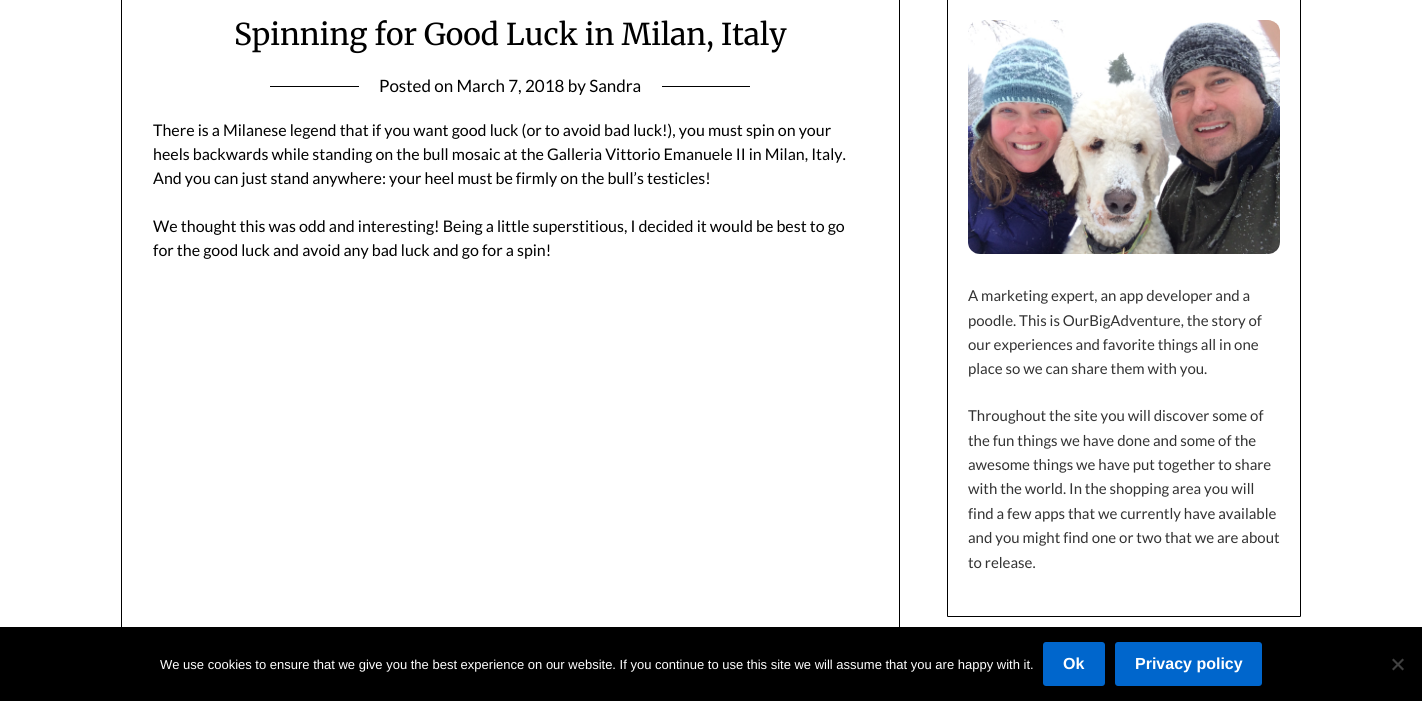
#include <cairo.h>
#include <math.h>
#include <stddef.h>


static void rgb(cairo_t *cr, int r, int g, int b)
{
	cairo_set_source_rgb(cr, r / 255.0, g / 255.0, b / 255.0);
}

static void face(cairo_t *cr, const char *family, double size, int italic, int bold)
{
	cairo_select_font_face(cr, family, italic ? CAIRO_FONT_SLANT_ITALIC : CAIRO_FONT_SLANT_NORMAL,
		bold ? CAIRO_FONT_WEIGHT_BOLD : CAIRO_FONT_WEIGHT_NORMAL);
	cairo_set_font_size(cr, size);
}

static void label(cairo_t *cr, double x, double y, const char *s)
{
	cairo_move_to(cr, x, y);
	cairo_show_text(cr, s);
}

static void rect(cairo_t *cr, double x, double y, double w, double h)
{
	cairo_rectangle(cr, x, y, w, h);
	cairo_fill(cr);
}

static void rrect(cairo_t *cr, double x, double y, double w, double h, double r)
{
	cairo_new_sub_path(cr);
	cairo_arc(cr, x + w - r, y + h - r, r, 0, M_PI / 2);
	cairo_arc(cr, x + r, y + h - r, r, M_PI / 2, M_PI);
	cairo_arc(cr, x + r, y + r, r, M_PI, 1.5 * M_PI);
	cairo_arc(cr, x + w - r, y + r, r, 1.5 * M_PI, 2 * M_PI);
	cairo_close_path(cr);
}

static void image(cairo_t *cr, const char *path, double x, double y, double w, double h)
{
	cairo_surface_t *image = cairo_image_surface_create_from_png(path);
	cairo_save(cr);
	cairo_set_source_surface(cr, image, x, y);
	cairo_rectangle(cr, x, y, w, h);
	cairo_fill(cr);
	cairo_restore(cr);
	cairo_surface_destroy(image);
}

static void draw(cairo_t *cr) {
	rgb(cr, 255, 255, 255);
	cairo_paint(cr);
	cairo_rectangle(cr, 121.5, -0.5, 778, 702);
	rgb(cr, 0, 0, 0);
	cairo_set_line_width(cr, 1);
	cairo_stroke(cr);
	face(cr, "Merriweather", 30, 0, 0);
	label(cr, 234, 45, "Spinning for Good Luck in Milan, Italy");
	rect(cr, 270, 86, 480, 1);
	rgb(cr, 255, 255, 255);
	rect(cr, 359, 86, 303, 1);
	face(cr, "Lato", 17, 0, 0);
	rgb(cr, 0, 0, 0);
	label(cr, 379, 92, "Posted on March 7, 2018 by Sandra");
	face(cr, "Lato", 16, 0, 0);
	label(cr, 153, 136, "There is a Milanese legend that if you want good luck (or to avoid bad luck!), you must spin on your");
	label(cr, 153, 160, "heels backwards while standing on the bull mosaic at the Galleria Vittorio Emanuele II in Milan, Italy.");
	label(cr, 153, 184, "And you can just stand anywhere: your heel must be firmly on the bull’s testicles!");
	label(cr, 153, 232, "We thought this was odd and interesting! Being a little superstitious, I decided it would be best to go");
	label(cr, 153, 256, "for the good luck and avoid any bad luck and go for a spin!");
	rrect(cr, 947.5, -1.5, 353, 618, 0.5);
	cairo_stroke(cr);
	image(cr, "image0.png", 968, 20, 312, 234);
	face(cr, "Lato", 15, 0, 0);
	rgb(cr, 51, 51, 51);
	label(cr, 968, 301, "A marketing expert, an app developer and a");
	label(cr, 968, 326, "poodle. This is OurBigAdventure, the story of");
	label(cr, 968, 350, "our experiences and favorite things all in one");
	label(cr, 968, 374, "place so we can share them with you.");
	label(cr, 968, 421, "Throughout the site you will discover some of");
	label(cr, 968, 446, "the fun things we have done and some of the");
	label(cr, 968, 470, "awesome things we have put together to share");
	label(cr, 968, 494, "with the world. In the shopping area you will");
	label(cr, 968, 519, "find a few apps that we currently have available");
	label(cr, 968, 543, "and you might find one or two that we are about");
	label(cr, 968, 568, "to release.");
	rgb(cr, 0, 0, 0);
	rect(cr, 0, 627, 1422, 74);
	face(cr, "Liberation Sans", 13, 0, 0);
	rgb(cr, 255, 255, 255);
	label(cr, 160, 669, "We use cookies to ensure that we give you the best experience on our website. If you continue to use this site we will assume that you are happy with it.");
	rgb(cr, 0, 102, 204);
	rrect(cr, 1043, 642, 62, 44, 3);
	cairo_fill(cr);
	face(cr, "Liberation Sans", 16, 0, 1);
	rgb(cr, 255, 255, 255);
	label(cr, 1063, 669, "Ok");
	rgb(cr, 0, 102, 204);
	rrect(cr, 1115, 642, 147, 44, 3);
	cairo_fill(cr);
	rgb(cr, 255, 255, 255);
	label(cr, 1135, 669, "Privacy policy");
	rgb(cr, 64, 64, 64);
	cairo_new_path(cr);
	cairo_move_to(cr, 1402.5, 658.5);
	cairo_line_to(cr, 1404, 660);
	cairo_line_to(cr, 1393.5, 670.5);
	cairo_line_to(cr, 1392, 669);
	cairo_close_path(cr);
	cairo_fill(cr);
	cairo_new_path(cr);
	cairo_move_to(cr, 1392, 660);
	cairo_line_to(cr, 1393.5, 658.5);
	cairo_line_to(cr, 1404, 669);
	cairo_line_to(cr, 1402.5, 670.5);
	cairo_close_path(cr);
	cairo_fill(cr);
}

int main(void) {
	cairo_surface_t *surface = cairo_image_surface_create(CAIRO_FORMAT_RGB24, 1422, 701);
	cairo_t *cr = cairo_create(surface);
	cairo_font_options_t *options = cairo_font_options_create();
	cairo_font_options_set_hint_metrics(options, CAIRO_HINT_METRICS_OFF);
	cairo_font_options_set_hint_style(options, CAIRO_HINT_STYLE_NONE);
	cairo_set_font_options(cr, options);
	cairo_set_miter_limit(cr, 4);
	draw(cr);
	cairo_surface_write_to_png(surface, "render.png");
	cairo_font_options_destroy(options);
	cairo_destroy(cr);
	cairo_surface_destroy(surface);
	return 0;
}
